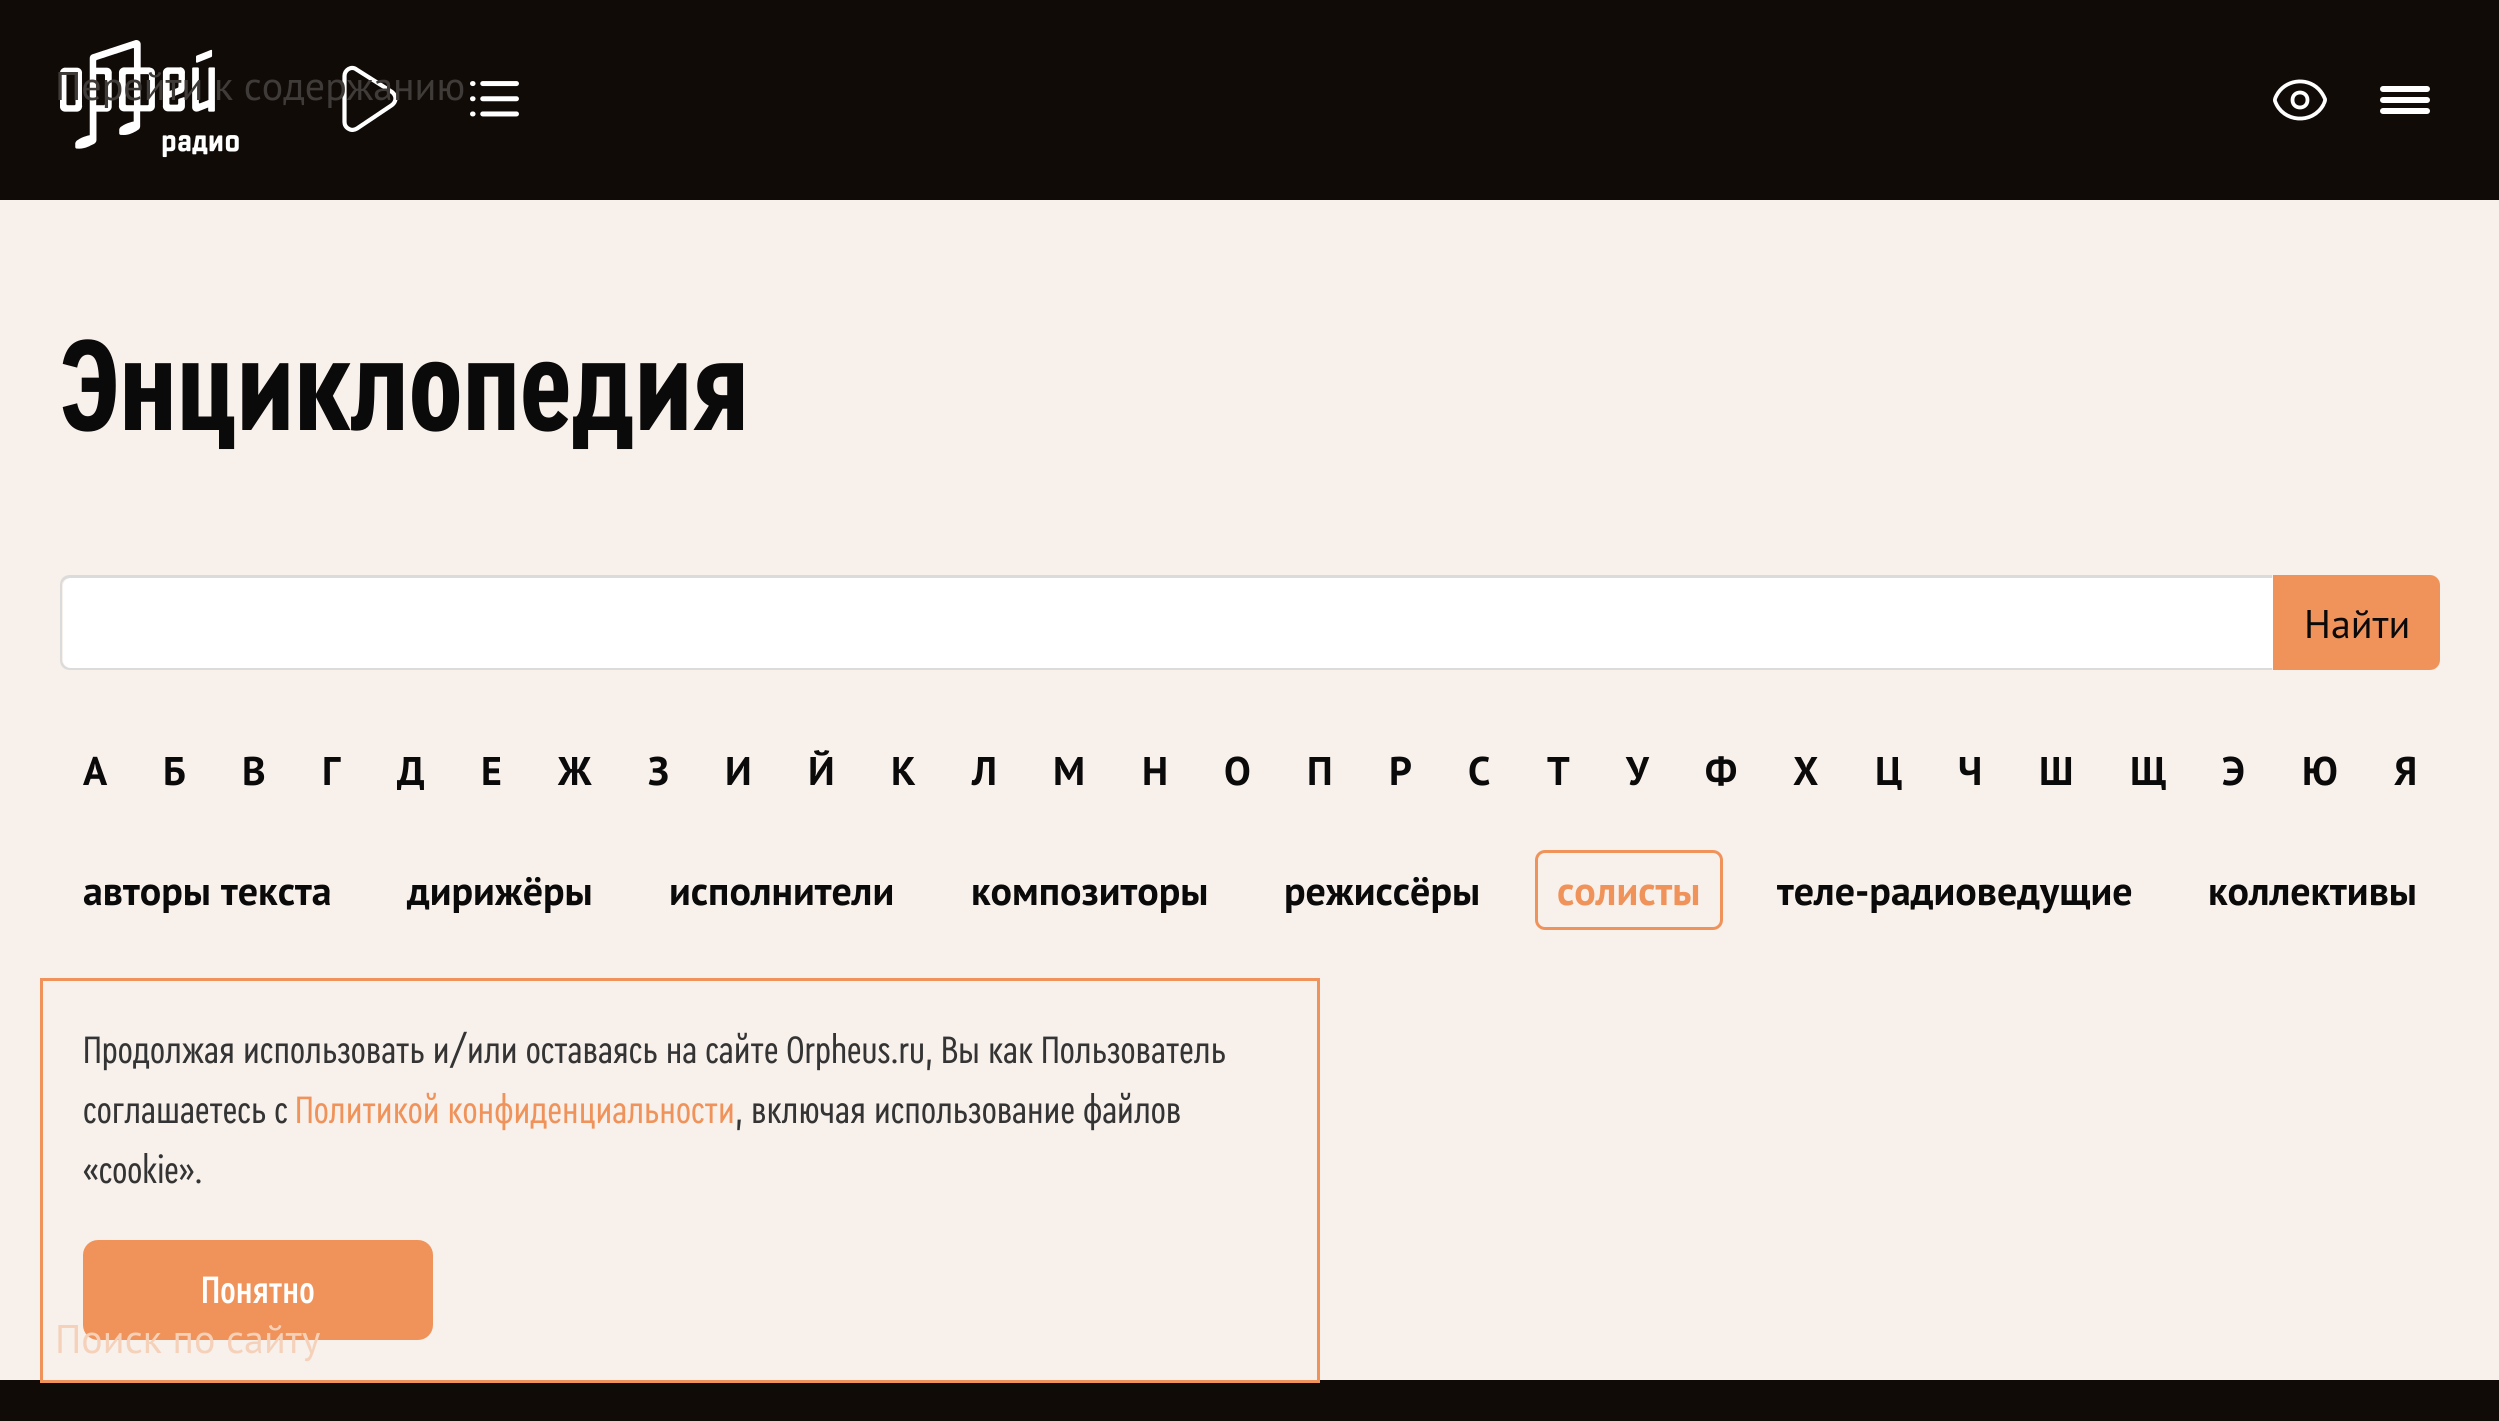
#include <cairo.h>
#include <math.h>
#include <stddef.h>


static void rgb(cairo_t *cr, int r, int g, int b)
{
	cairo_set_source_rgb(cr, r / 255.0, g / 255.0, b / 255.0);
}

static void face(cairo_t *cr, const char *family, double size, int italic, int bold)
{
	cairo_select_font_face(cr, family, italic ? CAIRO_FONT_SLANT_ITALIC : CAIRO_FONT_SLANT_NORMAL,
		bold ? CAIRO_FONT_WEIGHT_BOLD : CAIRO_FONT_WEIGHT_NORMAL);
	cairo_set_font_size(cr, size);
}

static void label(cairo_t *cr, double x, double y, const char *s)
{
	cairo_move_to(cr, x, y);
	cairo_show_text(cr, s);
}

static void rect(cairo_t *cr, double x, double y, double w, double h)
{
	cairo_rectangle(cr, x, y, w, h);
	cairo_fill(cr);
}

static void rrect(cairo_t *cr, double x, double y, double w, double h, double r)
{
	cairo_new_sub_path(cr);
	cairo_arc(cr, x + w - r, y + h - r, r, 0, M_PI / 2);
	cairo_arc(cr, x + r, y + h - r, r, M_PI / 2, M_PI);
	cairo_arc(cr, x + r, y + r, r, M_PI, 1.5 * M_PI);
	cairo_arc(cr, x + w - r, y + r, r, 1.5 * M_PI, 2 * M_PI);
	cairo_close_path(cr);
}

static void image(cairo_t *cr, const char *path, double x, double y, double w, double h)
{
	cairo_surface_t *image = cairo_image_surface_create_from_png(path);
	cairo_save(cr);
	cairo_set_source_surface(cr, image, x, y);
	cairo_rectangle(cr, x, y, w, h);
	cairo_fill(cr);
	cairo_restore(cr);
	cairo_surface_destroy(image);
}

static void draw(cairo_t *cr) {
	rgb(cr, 247, 240, 235);
	cairo_paint(cr);
	rgb(cr, 17, 11, 8);
	rect(cr, 0, 0, 2499, 200);
	image(cr, "image0.png", 60, 40, 179, 118);
	cairo_new_path(cr);
	cairo_move_to(cr, 2275, 101);
	cairo_curve_to(cr, 2274.5, 99, 2276, 96.5, 2276.5, 95.5);
	cairo_curve_to(cr, 2284.5, 80, 2306, 76.5, 2318.5, 89);
	cairo_curve_to(cr, 2321.5, 92, 2323.5, 95.5, 2325, 99);
	cairo_curve_to(cr, 2325.5, 101, 2323.5, 104, 2323.5, 104.5);
	cairo_curve_to(cr, 2312.5, 125, 2282.5, 122.5, 2275, 101);
	cairo_close_path(cr);
	cairo_move_to(cr, 2307.5, 100);
	cairo_curve_to(cr, 2307.5, 110, 2292.5, 110, 2292.5, 100);
	cairo_curve_to(cr, 2292.5, 90, 2307.5, 90, 2307.5, 100);
	cairo_close_path(cr);
	rgb(cr, 255, 255, 255);
	cairo_set_line_width(cr, 3.8);
	cairo_set_line_cap(cr, CAIRO_LINE_CAP_ROUND);
	cairo_set_line_join(cr, CAIRO_LINE_JOIN_ROUND);
	cairo_stroke(cr);
	rrect(cr, 2380, 86, 50, 6, 3);
	cairo_fill(cr);
	rrect(cr, 2380, 97, 50, 6, 3);
	cairo_fill(cr);
	rrect(cr, 2380, 108, 50, 6, 3);
	cairo_fill(cr);
	cairo_new_path(cr);
	cairo_move_to(cr, 356.5, 69.5);
	cairo_line_to(cr, 392, 92);
	cairo_curve_to(cr, 394, 93.5, 395.5, 96, 395.5, 98.5);
	cairo_curve_to(cr, 395.5, 101, 394, 103.5, 392, 105);
	cairo_line_to(cr, 357, 128.5);
	cairo_curve_to(cr, 354.5, 130, 351.5, 130.5, 349, 129);
	cairo_curve_to(cr, 346, 127.5, 344.5, 125, 344.5, 122);
	cairo_line_to(cr, 344.5, 76);
	cairo_curve_to(cr, 344.5, 73, 346, 70.5, 348.5, 69);
	cairo_curve_to(cr, 351, 67.5, 354, 67.5, 356.5, 69.5);
	cairo_close_path(cr);
	cairo_set_line_width(cr, 4.2);
	cairo_set_line_cap(cr, CAIRO_LINE_CAP_BUTT);
	cairo_set_line_join(cr, CAIRO_LINE_JOIN_MITER);
	cairo_stroke(cr);
	image(cr, "image1.png", 470, 81, 49, 36);
	face(cr, "PT Sans", 40, 0, 0);
	rgb(cr, 63, 59, 56);
	label(cr, 55, 100, "Перейти к содержанию");
	face(cr, "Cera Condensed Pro", 135, 0, 1);
	rgb(cr, 11, 10, 10);
	label(cr, 60, 430, "Энциклопедия");
	rgb(cr, 255, 255, 255);
	cairo_new_path(cr);
	cairo_move_to(cr, 71, 578);
	cairo_line_to(cr, 2273, 578);
	cairo_line_to(cr, 2273, 668);
	cairo_line_to(cr, 71, 668);
	cairo_curve_to(cr, 66.5, 668, 63, 664.5, 63, 660);
	cairo_line_to(cr, 63, 586);
	cairo_curve_to(cr, 63, 581.5, 66.5, 578, 71, 578);
	cairo_close_path(cr);
	cairo_fill(cr);
	rgb(cr, 220, 219, 219);
	cairo_set_fill_rule(cr, CAIRO_FILL_RULE_EVEN_ODD);
	cairo_new_path(cr);
	cairo_move_to(cr, 70, 575);
	cairo_line_to(cr, 2272, 575);
	cairo_line_to(cr, 2272, 670);
	cairo_line_to(cr, 70, 670);
	cairo_curve_to(cr, 64, 670, 60, 666, 60, 660);
	cairo_line_to(cr, 60, 585);
	cairo_curve_to(cr, 60, 579, 64, 575, 70, 575);
	cairo_close_path(cr);
	cairo_move_to(cr, 70, 578);
	cairo_line_to(cr, 2272, 578);
	cairo_line_to(cr, 2272, 668);
	cairo_line_to(cr, 70, 668);
	cairo_curve_to(cr, 66, 668, 62, 664, 62, 660);
	cairo_line_to(cr, 62, 585);
	cairo_curve_to(cr, 62, 581, 66, 578, 70, 578);
	cairo_close_path(cr);
	cairo_fill(cr);
	rgb(cr, 240, 147, 91);
	cairo_new_path(cr);
	cairo_move_to(cr, 2273, 575);
	cairo_line_to(cr, 2430, 575);
	cairo_curve_to(cr, 2435.5, 575, 2440, 579.5, 2440, 585);
	cairo_line_to(cr, 2440, 660);
	cairo_curve_to(cr, 2440, 665.5, 2435.5, 670, 2430, 670);
	cairo_line_to(cr, 2273, 670);
	cairo_close_path(cr);
	cairo_fill(cr);
	face(cr, "PT Sans", 40, 0, 0);
	rgb(cr, 11, 10, 10);
	label(cr, 2304, 638, "Найти");
	face(cr, "PT Sans", 40, 0, 1);
	label(cr, 83, 785, "А");
	label(cr, 163, 785, "Б");
	label(cr, 242, 785, "В");
	label(cr, 322, 785, "Г");
	label(cr, 397, 785, "Д");
	label(cr, 481, 785, "Е");
	label(cr, 558, 785, "Ж");
	label(cr, 648, 785, "З");
	label(cr, 725, 785, "И");
	label(cr, 808, 785, "Й");
	label(cr, 891, 785, "К");
	label(cr, 972, 785, "Л");
	label(cr, 1053, 785, "М");
	label(cr, 1142, 785, "Н");
	label(cr, 1224, 785, "О");
	label(cr, 1307, 785, "П");
	label(cr, 1389, 785, "Р");
	label(cr, 1468, 785, "С");
	label(cr, 1547, 785, "Т");
	label(cr, 1626, 785, "У");
	label(cr, 1705, 785, "Ф");
	label(cr, 1793, 785, "Х");
	label(cr, 1875, 785, "Ц");
	label(cr, 1958, 785, "Ч");
	label(cr, 2039, 785, "Ш");
	label(cr, 2130, 785, "Щ");
	label(cr, 2222, 785, "Э");
	label(cr, 2302, 785, "Ю");
	label(cr, 2394, 785, "Я");
	label(cr, 83, 905, "авторы текста");
	label(cr, 407, 905, "дирижёры");
	label(cr, 669, 905, "исполнители");
	label(cr, 971, 905, "композиторы");
	label(cr, 1284, 905, "режиссёры");
	rrect(cr, 1536.5, 851.5, 185, 77, 8.5);
	rgb(cr, 240, 147, 91);
	cairo_set_line_width(cr, 3);
	cairo_stroke(cr);
	label(cr, 1557, 905, "солисты");
	rgb(cr, 11, 10, 10);
	label(cr, 1777, 905, "теле-радиоведущие");
	label(cr, 2208, 905, "коллективы");
	rgb(cr, 17, 11, 8);
	rect(cr, 0, 1380, 2499, 41);
	cairo_rectangle(cr, 41.5, 979.5, 1277, 402);
	rgb(cr, 240, 147, 91);
	cairo_stroke(cr);
	face(cr, "Cera Condensed Pro", 40, 0, 0);
	rgb(cr, 52, 52, 52);
	label(cr, 83, 1063, "Продолжая использовать и/или оставаясь на сайте Orpheus.ru, Вы как Пользователь");
	label(cr, 83, 1123, "соглашаетесь с");
	rgb(cr, 240, 147, 91);
	label(cr, 295, 1123, "Политикой конфиденциальности");
	rgb(cr, 52, 52, 52);
	label(cr, 735, 1123, ", включая использование файлов");
	label(cr, 83, 1183, "«cookie».");
	rgb(cr, 240, 147, 91);
	rrect(cr, 84.5, 1241.5, 347, 97, 13.5);
	cairo_fill_preserve(cr);
	cairo_stroke(cr);
	face(cr, "Cera Condensed Pro Medium", 40, 0, 0);
	rgb(cr, 255, 255, 255);
	label(cr, 201, 1303, "Понятно");
	face(cr, "PT Sans", 40, 0, 0);
	rgb(cr, 245, 209, 186);
	label(cr, 55, 1353, "Поиск по сайту");
}

int main(void) {
	cairo_surface_t *surface = cairo_image_surface_create(CAIRO_FORMAT_RGB24, 2499, 1421);
	cairo_t *cr = cairo_create(surface);
	cairo_font_options_t *options = cairo_font_options_create();
	cairo_font_options_set_hint_metrics(options, CAIRO_HINT_METRICS_OFF);
	cairo_font_options_set_hint_style(options, CAIRO_HINT_STYLE_NONE);
	cairo_set_font_options(cr, options);
	cairo_set_miter_limit(cr, 4);
	draw(cr);
	cairo_surface_write_to_png(surface, "render.png");
	cairo_font_options_destroy(options);
	cairo_destroy(cr);
	cairo_surface_destroy(surface);
	return 0;
}
